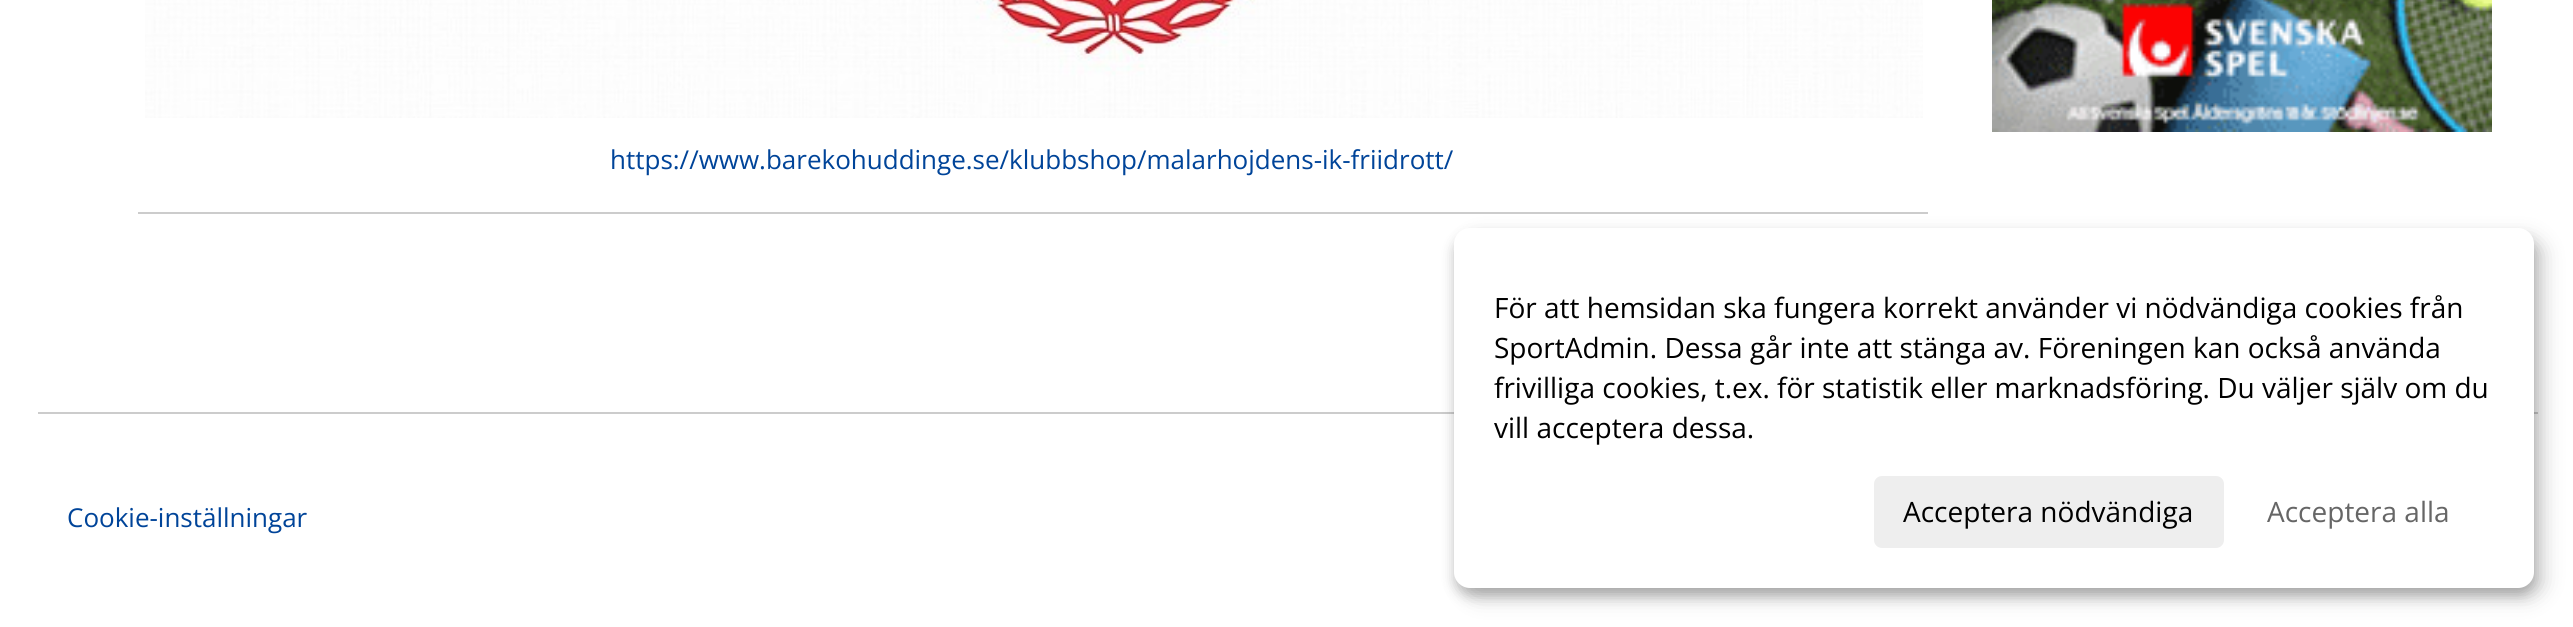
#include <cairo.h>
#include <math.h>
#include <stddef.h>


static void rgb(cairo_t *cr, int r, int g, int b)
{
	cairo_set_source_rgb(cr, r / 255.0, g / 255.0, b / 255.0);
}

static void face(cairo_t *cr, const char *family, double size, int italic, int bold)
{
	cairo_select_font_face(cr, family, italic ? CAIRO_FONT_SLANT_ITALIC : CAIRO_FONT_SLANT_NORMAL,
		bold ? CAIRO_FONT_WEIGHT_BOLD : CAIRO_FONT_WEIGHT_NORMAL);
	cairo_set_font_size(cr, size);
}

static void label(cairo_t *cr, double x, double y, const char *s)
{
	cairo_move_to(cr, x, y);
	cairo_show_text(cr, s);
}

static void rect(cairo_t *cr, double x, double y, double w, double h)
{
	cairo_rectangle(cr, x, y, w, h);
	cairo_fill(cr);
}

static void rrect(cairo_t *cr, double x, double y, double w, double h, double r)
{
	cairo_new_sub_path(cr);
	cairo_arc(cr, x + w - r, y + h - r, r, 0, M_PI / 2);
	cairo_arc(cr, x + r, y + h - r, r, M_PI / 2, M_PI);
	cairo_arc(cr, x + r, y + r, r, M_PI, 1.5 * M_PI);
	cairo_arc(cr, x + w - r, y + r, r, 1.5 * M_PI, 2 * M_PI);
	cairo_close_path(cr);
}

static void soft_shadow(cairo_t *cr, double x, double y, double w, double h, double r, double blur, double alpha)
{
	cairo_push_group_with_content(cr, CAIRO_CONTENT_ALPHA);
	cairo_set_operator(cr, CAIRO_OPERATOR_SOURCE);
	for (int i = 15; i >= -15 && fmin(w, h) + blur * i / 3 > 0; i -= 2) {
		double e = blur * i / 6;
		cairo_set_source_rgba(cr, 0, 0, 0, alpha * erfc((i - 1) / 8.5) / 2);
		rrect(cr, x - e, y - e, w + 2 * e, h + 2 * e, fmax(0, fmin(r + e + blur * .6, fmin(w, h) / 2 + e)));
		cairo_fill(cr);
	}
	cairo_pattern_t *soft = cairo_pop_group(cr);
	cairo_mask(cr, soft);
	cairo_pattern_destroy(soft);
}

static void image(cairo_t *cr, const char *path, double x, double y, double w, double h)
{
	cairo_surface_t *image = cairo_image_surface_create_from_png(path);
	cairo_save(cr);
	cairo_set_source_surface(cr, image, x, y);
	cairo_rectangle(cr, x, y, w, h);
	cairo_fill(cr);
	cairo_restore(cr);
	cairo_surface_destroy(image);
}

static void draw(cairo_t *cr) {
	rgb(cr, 255, 255, 255);
	cairo_paint(cr);
	image(cr, "image0.png", 1992, 0, 500, 132);
	image(cr, "image1.png", 145, 0, 1778, 118);
	face(cr, "Open Sans", 26, 0, 0);
	rgb(cr, 0, 68, 153);
	label(cr, 610, 169, "https://www.barekohuddinge.se/klubbshop/malarhojdens-ik-friidrott/");
	rgb(cr, 204, 204, 204);
	rect(cr, 138, 212, 1790, 2);
	rect(cr, 38, 412, 2500, 2);
	rgb(cr, 0, 68, 153);
	label(cr, 67, 527, "Cookie-inställningar");
	rgb(cr, 0, 0, 0);
	soft_shadow(cr, 1464, 238, 1080, 360, 16, 10, 0.19);
	soft_shadow(cr, 1454, 236, 1080, 360, 16, 6, 0.2);
	rgb(cr, 255, 255, 255);
	rrect(cr, 1454, 228, 1080, 360, 16);
	cairo_fill(cr);
	face(cr, "Open Sans", 28, 0, 0);
	rgb(cr, 0, 0, 0);
	label(cr, 1494, 318, "För att hemsidan ska fungera korrekt använder vi nödvändiga cookies från");
	label(cr, 1494, 358, "SportAdmin. Dessa går inte att stänga av. Föreningen kan också använda");
	label(cr, 1494, 398, "frivilliga cookies, t.ex. för statistik eller marknadsföring. Du väljer själv om du");
	label(cr, 1494, 438, "vill acceptera dessa.");
	rgb(cr, 238, 238, 238);
	rrect(cr, 1874, 476, 350, 72, 8);
	cairo_fill(cr);
	rgb(cr, 0, 0, 0);
	label(cr, 1903, 522, "Acceptera nödvändiga");
	rgb(cr, 102, 102, 102);
	label(cr, 2267, 522, "Acceptera alla");
}

int main(void) {
	cairo_surface_t *surface = cairo_image_surface_create(CAIRO_FORMAT_RGB24, 2573, 627);
	cairo_t *cr = cairo_create(surface);
	cairo_font_options_t *options = cairo_font_options_create();
	cairo_font_options_set_hint_metrics(options, CAIRO_HINT_METRICS_OFF);
	cairo_font_options_set_hint_style(options, CAIRO_HINT_STYLE_NONE);
	cairo_set_font_options(cr, options);
	cairo_set_miter_limit(cr, 4);
	draw(cr);
	cairo_surface_write_to_png(surface, "render.png");
	cairo_font_options_destroy(options);
	cairo_destroy(cr);
	cairo_surface_destroy(surface);
	return 0;
}
